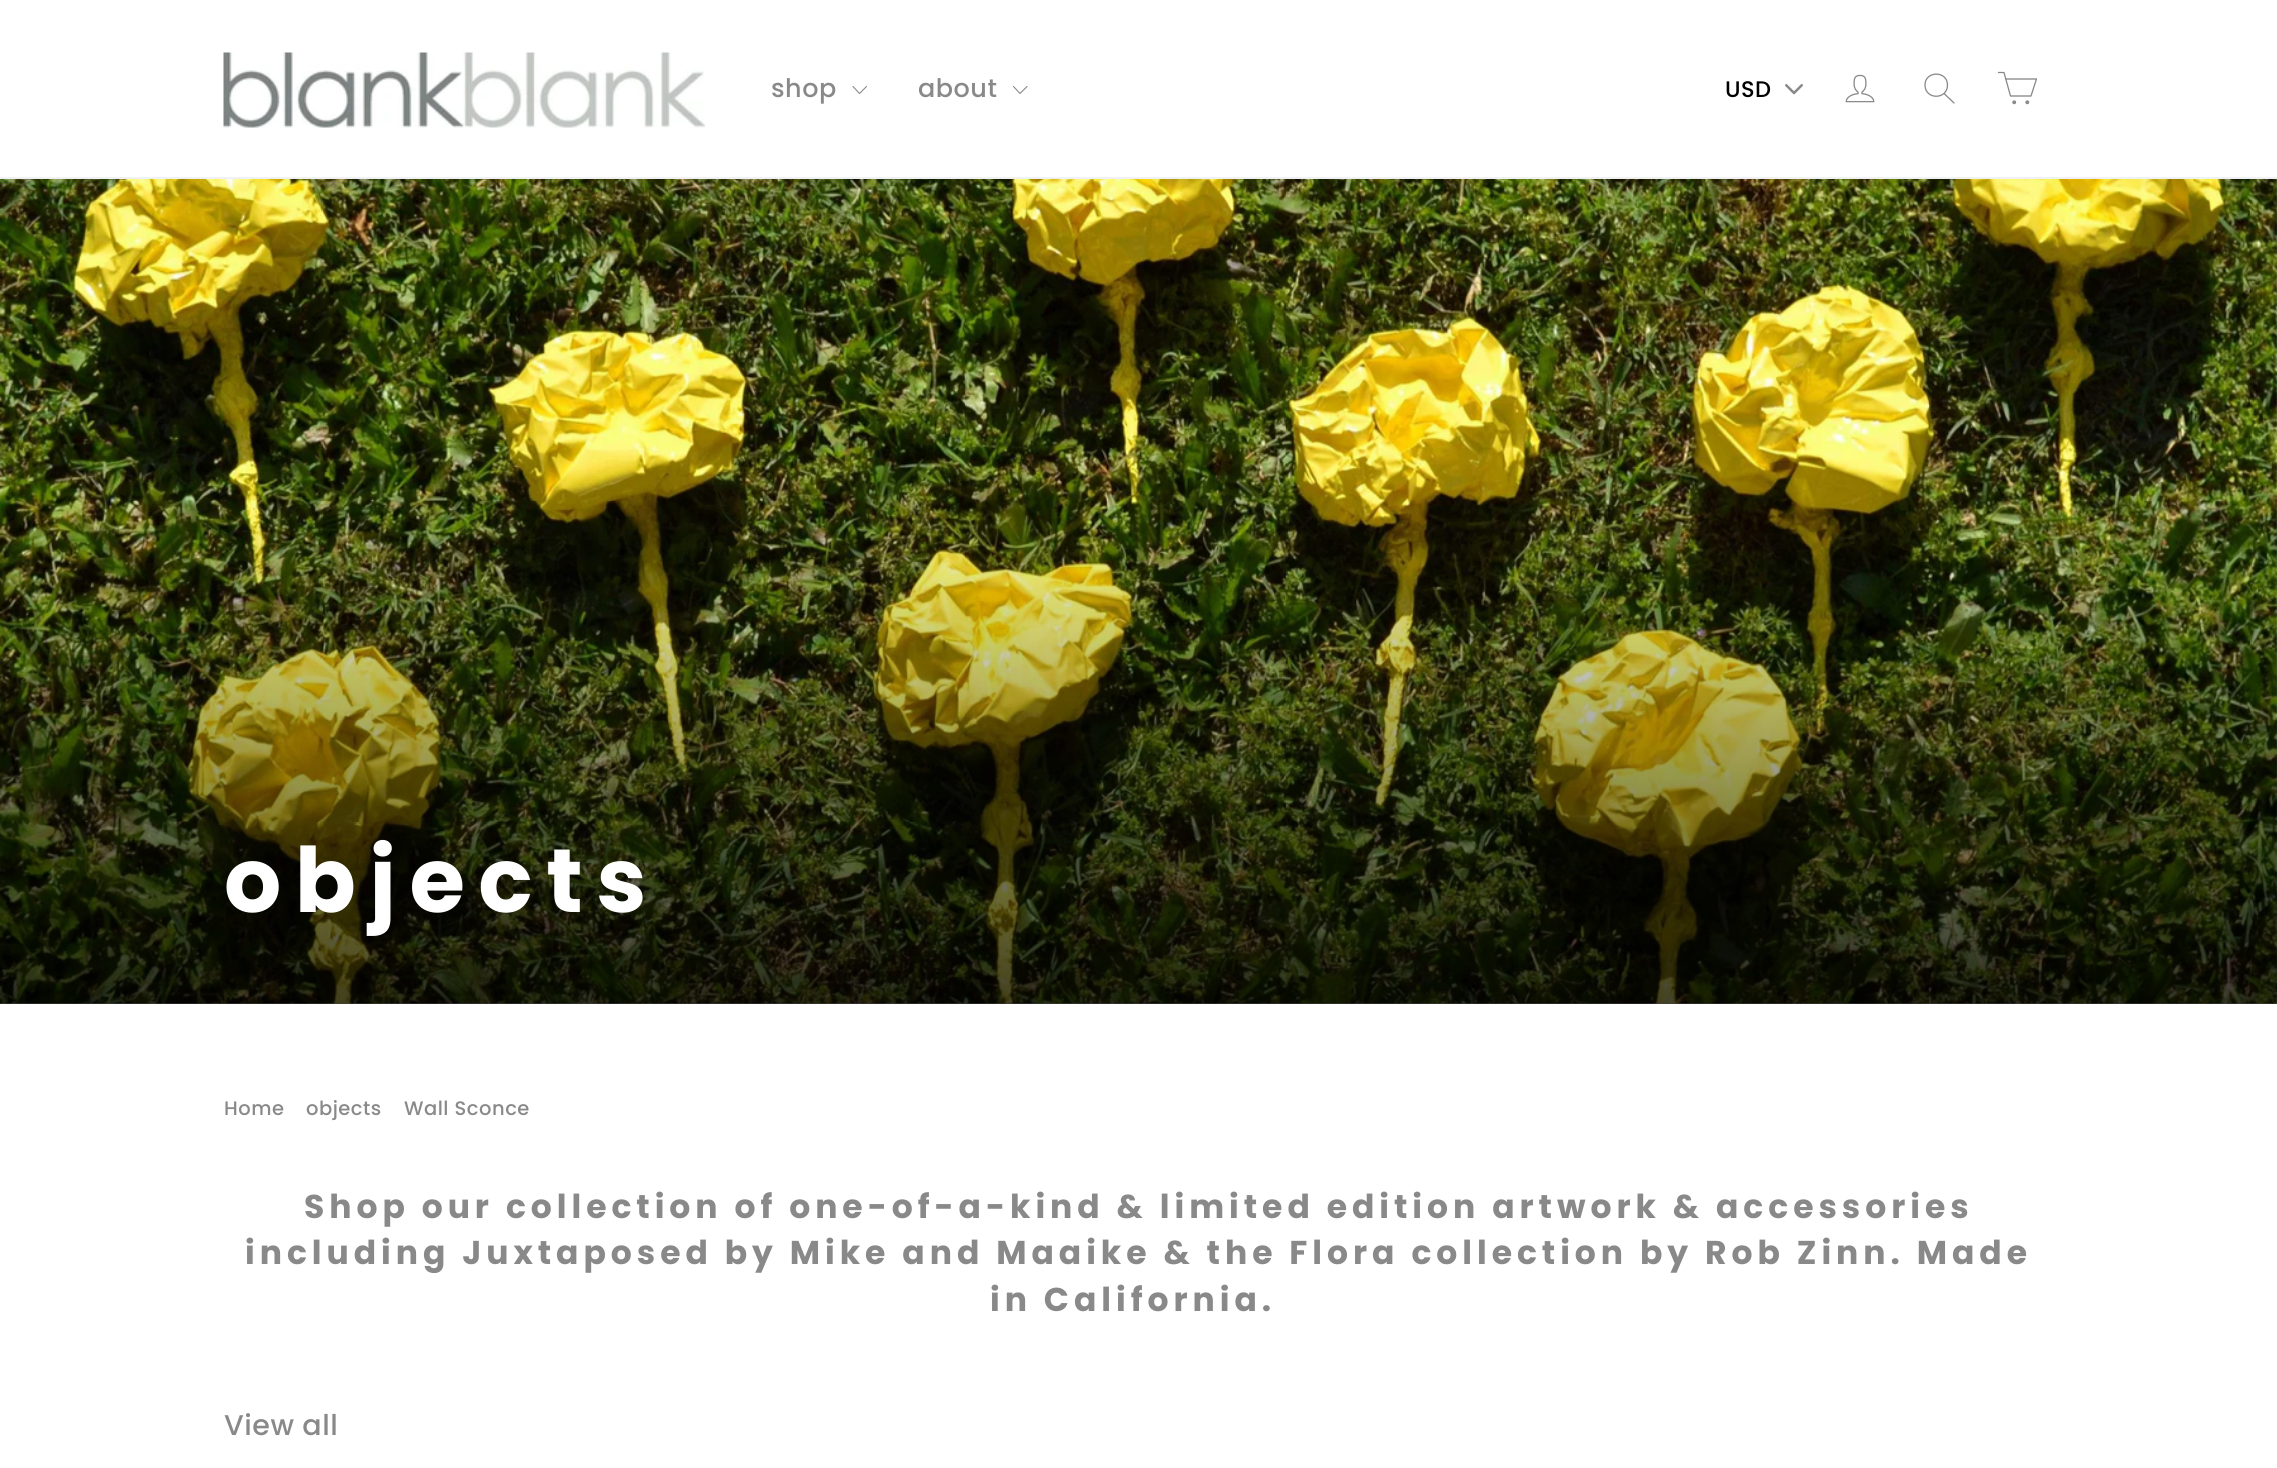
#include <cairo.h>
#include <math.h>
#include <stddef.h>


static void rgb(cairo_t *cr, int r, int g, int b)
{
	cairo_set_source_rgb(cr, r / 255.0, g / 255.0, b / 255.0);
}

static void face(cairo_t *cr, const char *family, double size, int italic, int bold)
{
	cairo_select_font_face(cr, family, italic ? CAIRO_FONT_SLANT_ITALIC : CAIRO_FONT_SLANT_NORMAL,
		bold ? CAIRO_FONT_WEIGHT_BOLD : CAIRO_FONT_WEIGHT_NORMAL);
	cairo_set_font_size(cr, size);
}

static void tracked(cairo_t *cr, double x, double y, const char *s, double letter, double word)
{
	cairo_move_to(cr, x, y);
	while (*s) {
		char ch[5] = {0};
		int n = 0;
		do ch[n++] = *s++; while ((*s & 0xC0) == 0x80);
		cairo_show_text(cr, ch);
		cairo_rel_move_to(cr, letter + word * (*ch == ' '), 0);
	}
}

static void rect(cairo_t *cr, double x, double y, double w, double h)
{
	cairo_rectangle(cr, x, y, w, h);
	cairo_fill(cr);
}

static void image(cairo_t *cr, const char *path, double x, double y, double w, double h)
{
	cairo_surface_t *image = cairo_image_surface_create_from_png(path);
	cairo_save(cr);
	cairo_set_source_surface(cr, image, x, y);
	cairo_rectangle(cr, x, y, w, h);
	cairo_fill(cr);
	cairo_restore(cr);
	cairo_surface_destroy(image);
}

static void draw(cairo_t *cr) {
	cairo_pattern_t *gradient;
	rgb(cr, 255, 255, 255);
	cairo_paint(cr);
	rgb(cr, 240, 241, 243);
	rect(cr, 0, 177, 2277, 2);
	image(cr, "image0.png", 223, 52, 482, 76);
	face(cr, "Poppins Medium", 25.5, 0, 0);
	rgb(cr, 137, 137, 138);
	tracked(cr, 771, 97, "shop", 0.5, 0);
	cairo_new_path(cr);
	cairo_move_to(cr, 853, 86.5);
	cairo_line_to(cr, 859.5, 93.5);
	cairo_line_to(cr, 866.5, 86.5);
	cairo_set_line_width(cr, 1.1);
	cairo_set_line_cap(cr, CAIRO_LINE_CAP_ROUND);
	cairo_set_line_join(cr, CAIRO_LINE_JOIN_ROUND);
	cairo_stroke(cr);
	tracked(cr, 918, 97, "about", 0.5, 0);
	cairo_new_path(cr);
	cairo_move_to(cr, 1013.5, 86.5);
	cairo_line_to(cr, 1020, 93.5);
	cairo_line_to(cr, 1027, 86.5);
	cairo_stroke(cr);
	image(cr, "image1.png", 1785, 84, 18, 11);
	face(cr, "Poppins Medium", 22.5, 0, 0);
	rgb(cr, 0, 0, 0);
	tracked(cr, 1725, 97, "USD", 0.5, 0);
	image(cr, "image2.png", 1845, 74, 30, 29);
	cairo_new_path(cr);
	cairo_move_to(cr, 1947.5, 85);
	cairo_curve_to(cr, 1947.5, 100, 1925, 100, 1925, 85);
	cairo_curve_to(cr, 1925, 70.5, 1947.5, 70.5, 1947.5, 85);
	cairo_close_path(cr);
	cairo_move_to(cr, 1954, 103);
	cairo_line_to(cr, 1944, 93.5);
	rgb(cr, 137, 137, 138);
	cairo_set_line_width(cr, 1.3);
	cairo_stroke(cr);
	cairo_new_path(cr);
	cairo_move_to(cr, 2005.5, 79);
	cairo_line_to(cr, 2036.5, 79);
	cairo_line_to(cr, 2031, 96);
	cairo_line_to(cr, 2010.5, 96);
	cairo_line_to(cr, 2004, 72.5);
	cairo_line_to(cr, 1998.5, 72.5);
	cairo_stroke(cr);
	cairo_arc(cr, 2014.2, 102.3, 1.3, 0, 2 * M_PI);
	cairo_fill_preserve(cr);
	cairo_set_line_cap(cr, CAIRO_LINE_CAP_BUTT);
	cairo_set_line_join(cr, CAIRO_LINE_JOIN_MITER);
	cairo_stroke(cr);
	cairo_arc(cr, 2027.3, 102.3, 1.3, 0, 2 * M_PI);
	cairo_fill_preserve(cr);
	cairo_stroke(cr);
	image(cr, "image3.png", 0, 179, 2277, 825);
	gradient = cairo_pattern_create_linear(1139, 178, 1139, 1004);
	cairo_pattern_add_color_stop_rgba(gradient, 0, 0, 0, 0, 0);
	cairo_pattern_add_color_stop_rgba(gradient, 0.4, 0, 0, 0, 0);
	cairo_pattern_add_color_stop_rgba(gradient, 1, 0, 0, 0, 0.74);
	cairo_set_source(cr, gradient);
	cairo_pattern_destroy(gradient);
	rect(cr, 0, 523, 2277, 481);
	face(cr, "Poppins", 90, 0, 1);
	rgb(cr, 255, 255, 255);
	tracked(cr, 224, 912, "objects", 13.5, 0);
	face(cr, "Poppins Medium", 19.5, 0, 0);
	rgb(cr, 137, 137, 138);
	tracked(cr, 224, 1115, "Home", 0.5, 0);
	tracked(cr, 306, 1115, "objects", 0.5, 0);
	tracked(cr, 404, 1115, "Wall Sconce", 0.5, 0);
	face(cr, "Poppins", 33, 0, 1);
	tracked(cr, 304, 1218, "Shop our collection of one-of-a-kind & limited edition artwork & accessories", 4.95, 0);
	tracked(cr, 245, 1264, "including Juxtaposed by Mike and Maaike & the Flora collection by Rob Zinn. Made", 4.95, 0);
	tracked(cr, 990, 1311, "in California.", 4.95, 0);
	face(cr, "Poppins Medium", 28.5, 0, 0);
	tracked(cr, 224, 1435, "View all", 0.5, 0);
}

int main(void) {
	cairo_surface_t *surface = cairo_image_surface_create(CAIRO_FORMAT_RGB24, 2277, 1468);
	cairo_t *cr = cairo_create(surface);
	cairo_font_options_t *options = cairo_font_options_create();
	cairo_font_options_set_hint_metrics(options, CAIRO_HINT_METRICS_OFF);
	cairo_font_options_set_hint_style(options, CAIRO_HINT_STYLE_NONE);
	cairo_set_font_options(cr, options);
	cairo_set_miter_limit(cr, 4);
	draw(cr);
	cairo_surface_write_to_png(surface, "render.png");
	cairo_font_options_destroy(options);
	cairo_destroy(cr);
	cairo_surface_destroy(surface);
	return 0;
}
